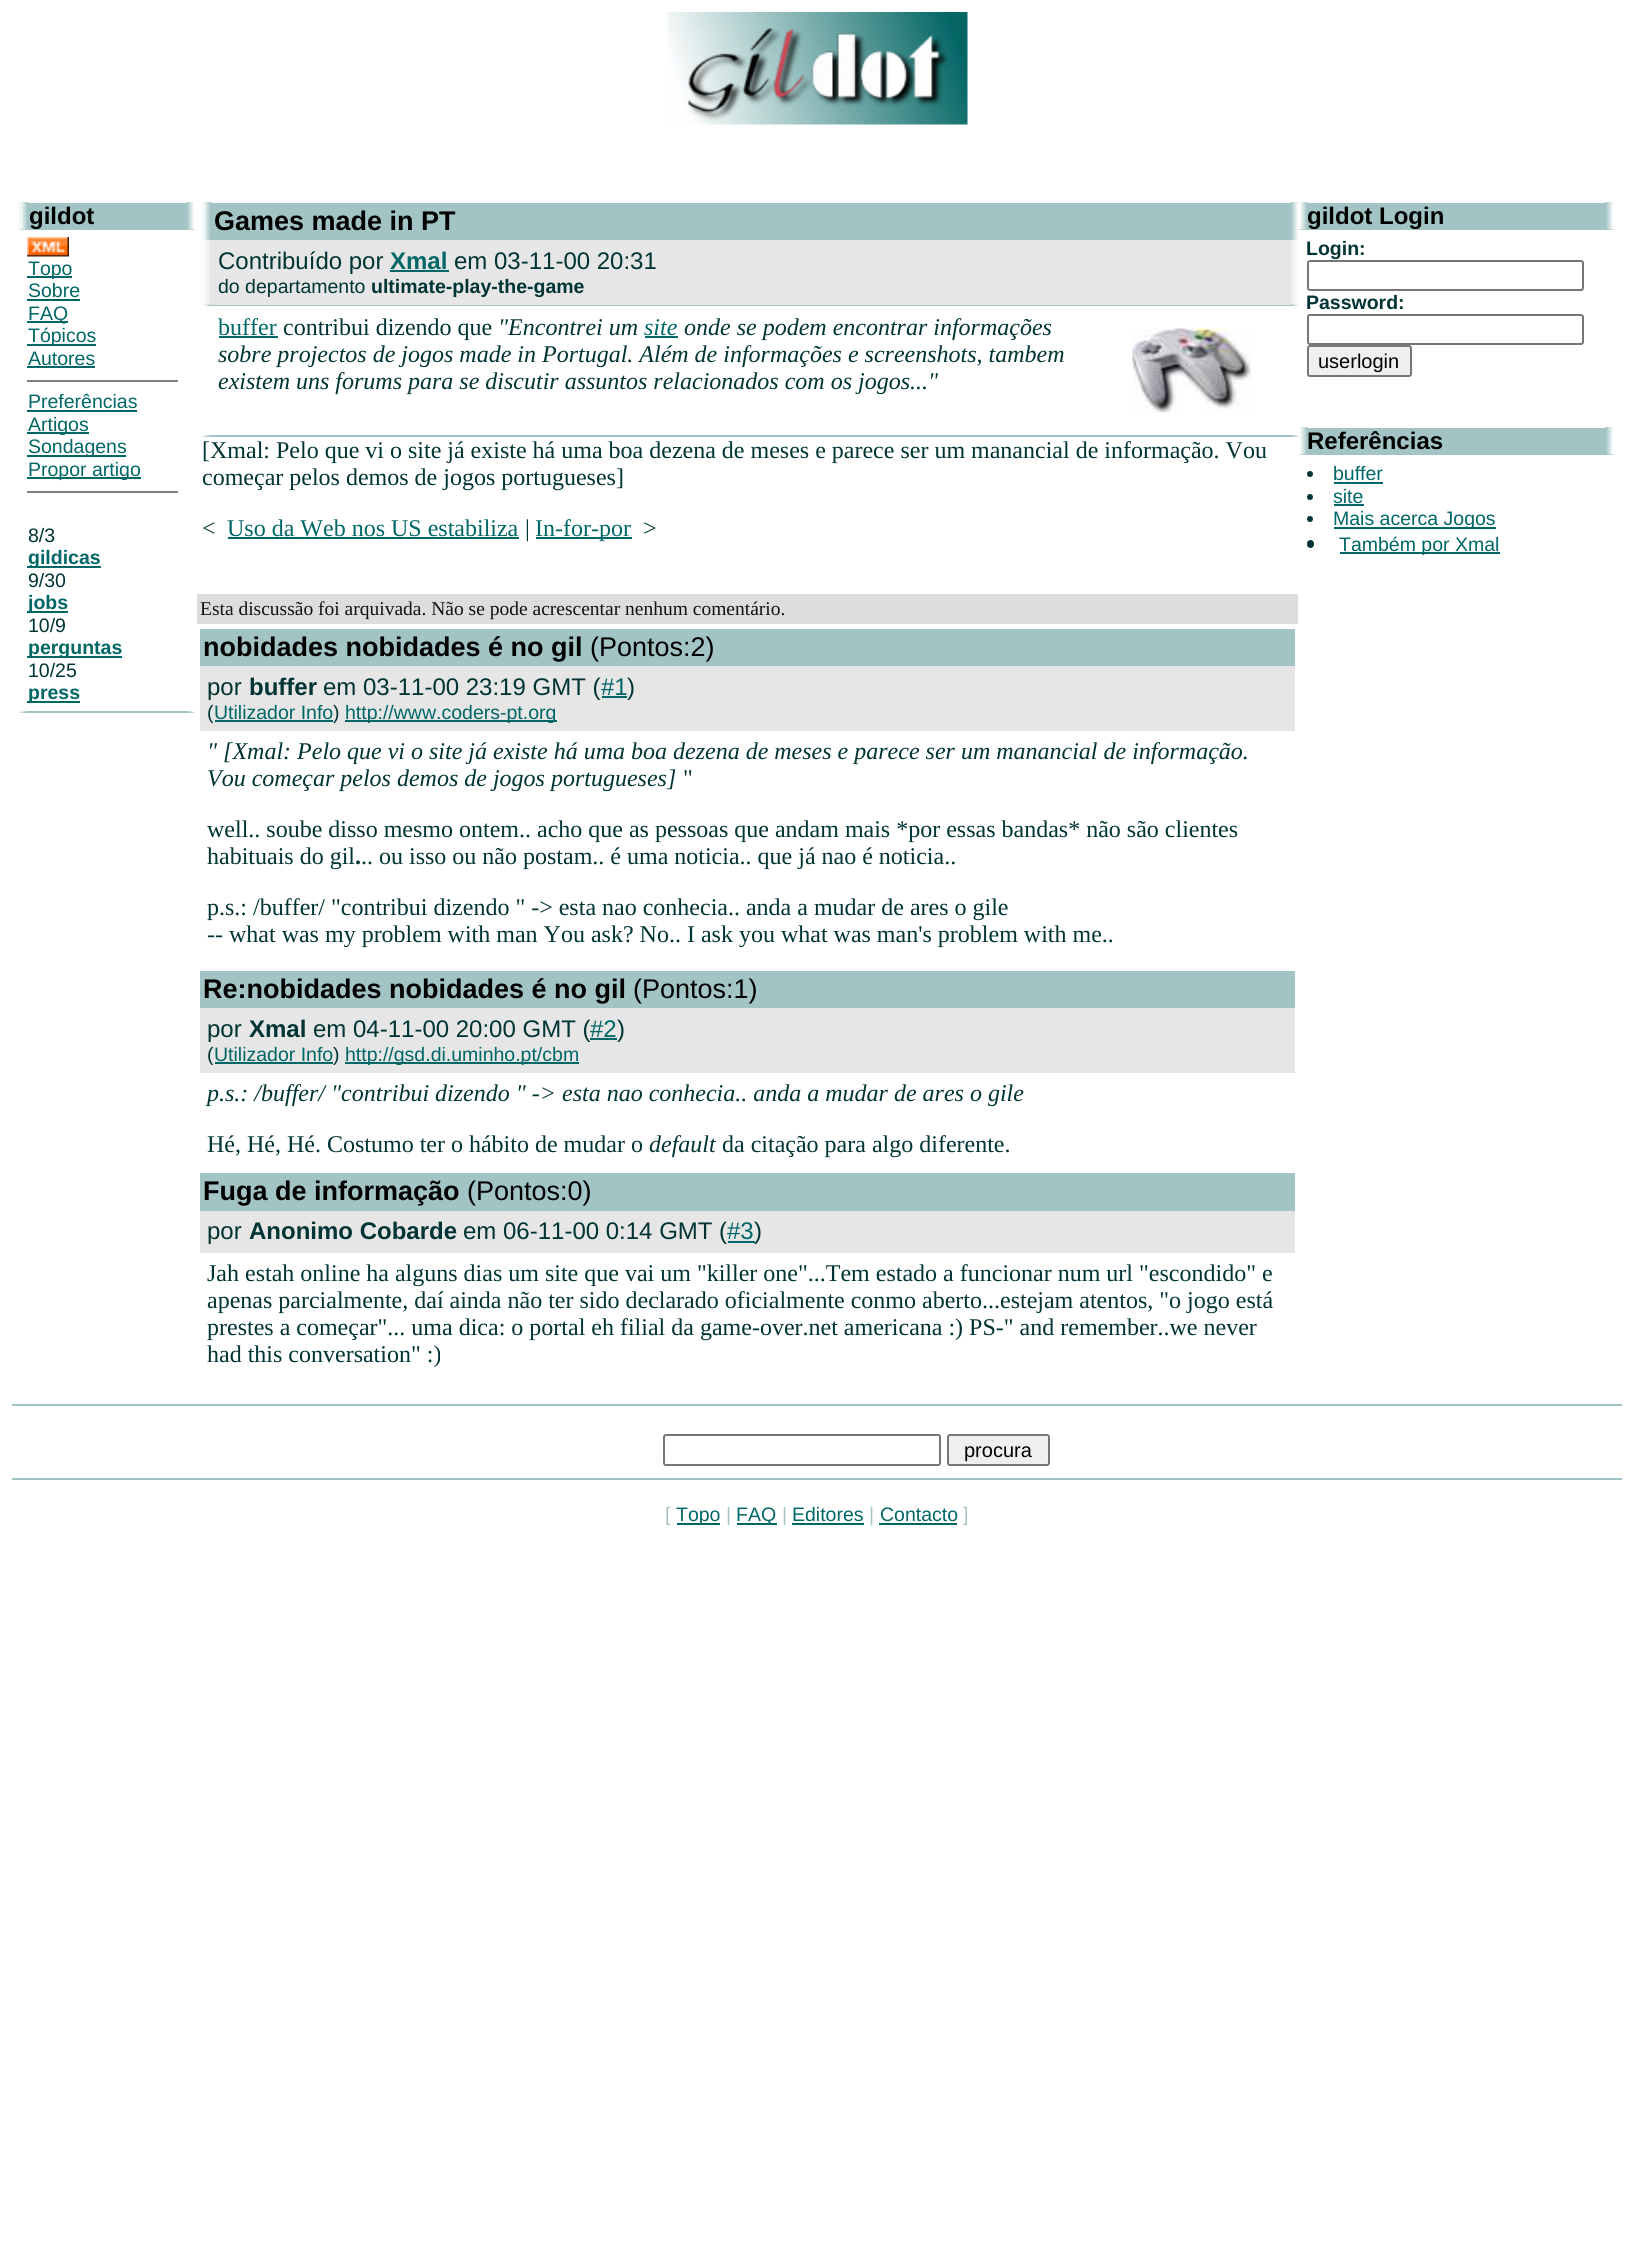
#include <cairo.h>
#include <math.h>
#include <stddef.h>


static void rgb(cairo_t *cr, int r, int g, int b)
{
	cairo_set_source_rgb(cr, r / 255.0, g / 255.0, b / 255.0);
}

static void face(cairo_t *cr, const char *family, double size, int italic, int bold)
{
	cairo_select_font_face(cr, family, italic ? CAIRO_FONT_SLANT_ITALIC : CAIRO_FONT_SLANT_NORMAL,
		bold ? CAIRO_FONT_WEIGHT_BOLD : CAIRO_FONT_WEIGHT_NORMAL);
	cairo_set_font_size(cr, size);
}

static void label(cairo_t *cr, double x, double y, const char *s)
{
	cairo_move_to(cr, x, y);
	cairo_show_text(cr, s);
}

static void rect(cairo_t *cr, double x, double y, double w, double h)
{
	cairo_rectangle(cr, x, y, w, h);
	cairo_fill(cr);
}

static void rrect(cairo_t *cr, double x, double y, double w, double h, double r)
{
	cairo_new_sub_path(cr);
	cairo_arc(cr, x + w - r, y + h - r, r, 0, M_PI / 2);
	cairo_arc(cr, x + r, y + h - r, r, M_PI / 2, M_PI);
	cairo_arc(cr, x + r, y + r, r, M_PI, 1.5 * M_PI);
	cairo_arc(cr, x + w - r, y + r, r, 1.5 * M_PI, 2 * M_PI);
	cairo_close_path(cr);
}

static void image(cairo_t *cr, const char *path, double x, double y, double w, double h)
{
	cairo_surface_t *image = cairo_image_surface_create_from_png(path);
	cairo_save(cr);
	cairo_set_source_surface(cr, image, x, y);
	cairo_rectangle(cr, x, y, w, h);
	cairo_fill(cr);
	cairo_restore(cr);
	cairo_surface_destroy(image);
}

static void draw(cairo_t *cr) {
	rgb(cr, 255, 255, 255);
	cairo_paint(cr);
	image(cr, "image0.png", 667, 12, 301, 113);
	rgb(cr, 163, 196, 197);
	rect(cr, 20, 203, 175, 27);
	image(cr, "image1.png", 19, 202, 10, 28);
	image(cr, "image2.png", 19, 202, 10, 2);
	face(cr, "Liberation Sans", 24, 0, 1);
	rgb(cr, 0, 0, 0);
	label(cr, 29, 224, "gildot");
	image(cr, "image3.png", 186, 202, 9, 28);
	image(cr, "image4.png", 186, 202, 9, 1);
	image(cr, "image5.png", 27, 237, 42, 20);
	rgb(cr, 0, 102, 102);
	rect(cr, 27, 276, 45, 2);
	face(cr, "Liberation Sans", 19.5, 0, 0);
	label(cr, 28, 275, "Topo");
	label(cr, 28, 297, "Sobre");
	rect(cr, 27, 299, 53, 2);
	rect(cr, 27, 321, 41, 2);
	label(cr, 28, 320, "FAQ");
	rect(cr, 27, 344, 69, 2);
	label(cr, 28, 342, "Tópicos");
	label(cr, 28, 365, "Autores");
	rect(cr, 27, 366, 68, 2);
	rgb(cr, 128, 128, 128);
	rect(cr, 27, 380, 151, 2);
	rgb(cr, 0, 102, 102);
	label(cr, 28, 408, "Preferências");
	rect(cr, 27, 410, 110, 2);
	rect(cr, 27, 432, 62, 2);
	label(cr, 28, 431, "Artigos");
	rect(cr, 27, 455, 99, 2);
	label(cr, 28, 453, "Sondagens");
	rect(cr, 27, 477, 114, 2);
	label(cr, 28, 476, "Propor artigo");
	rgb(cr, 128, 128, 128);
	rect(cr, 27, 491, 151, 2);
	rgb(cr, 0, 51, 51);
	label(cr, 28, 542, "8/3");
	rgb(cr, 0, 102, 102);
	rect(cr, 27, 566, 74, 2);
	face(cr, "Liberation Sans", 19.5, 0, 1);
	label(cr, 28, 564, "gildicas");
	face(cr, "Liberation Sans", 19.5, 0, 0);
	rgb(cr, 0, 51, 51);
	label(cr, 28, 587, "9/30");
	rgb(cr, 0, 102, 102);
	rect(cr, 27, 611, 41, 2);
	face(cr, "Liberation Sans", 19.5, 0, 1);
	label(cr, 28, 609, "jobs");
	face(cr, "Liberation Sans", 19.5, 0, 0);
	rgb(cr, 0, 51, 51);
	label(cr, 28, 632, "10/9");
	rgb(cr, 0, 102, 102);
	rect(cr, 27, 656, 95, 2);
	face(cr, "Liberation Sans", 19.5, 0, 1);
	label(cr, 28, 654, "perguntas");
	face(cr, "Liberation Sans", 19.5, 0, 0);
	rgb(cr, 0, 51, 51);
	label(cr, 28, 677, "10/25");
	rgb(cr, 0, 102, 102);
	rect(cr, 27, 701, 53, 2);
	face(cr, "Liberation Sans", 19.5, 0, 1);
	label(cr, 28, 699, "press");
	rgb(cr, 163, 196, 197);
	rect(cr, 20, 711, 175, 2);
	image(cr, "image6.png", 20, 711, 7, 2);
	image(cr, "image7.png", 187, 711, 8, 2);
	rect(cr, 211, 203, 1079, 37);
	image(cr, "image8.png", 202, 202, 10, 38);
	image(cr, "image2.png", 202, 202, 10, 2);
	face(cr, "Liberation Sans", 27, 0, 1);
	rgb(cr, 0, 0, 0);
	label(cr, 214, 230, "Games made in PT");
	image(cr, "image9.png", 1290, 202, 9, 38);
	image(cr, "image10.png", 1290, 202, 9, 1);
	rgb(cr, 230, 230, 230);
	rect(cr, 203, 240, 1096, 65);
	image(cr, "image11.png", 202, 240, 8, 65);
	face(cr, "Liberation Sans", 24, 0, 0);
	rgb(cr, 0, 51, 51);
	label(cr, 218, 269, "Contribuído por");
	face(cr, "Liberation Sans", 24, 0, 1);
	rgb(cr, 0, 102, 102);
	label(cr, 390, 269, "Xmal");
	rect(cr, 390, 270, 59, 2);
	face(cr, "Liberation Sans", 24, 0, 0);
	rgb(cr, 0, 51, 51);
	label(cr, 454, 269, "em 03-11-00 20:31");
	face(cr, "Liberation Sans", 19.5, 0, 0);
	label(cr, 218, 293, "do departamento");
	face(cr, "Liberation Sans", 19.5, 0, 1);
	label(cr, 371, 293, "ultimate-play-the-game");
	image(cr, "image12.png", 1291, 240, 8, 65);
	rgb(cr, 163, 196, 197);
	rect(cr, 203, 305, 1087, 1);
	image(cr, "image13.png", 203, 304, 9, 2);
	image(cr, "image14.png", 1290, 304, 9, 2);
	face(cr, "Liberation Serif", 24, 0, 0);
	rgb(cr, 0, 102, 102);
	label(cr, 218, 335, "buffer");
	rect(cr, 219, 336, 59, 2);
	rgb(cr, 0, 51, 51);
	label(cr, 283, 335, "contribui dizendo que");
	face(cr, "Liberation Serif", 24, 1, 0);
	label(cr, 498, 335, "\"Encontrei um");
	rgb(cr, 0, 102, 102);
	label(cr, 644, 335, "site");
	rect(cr, 645, 336, 33, 2);
	rgb(cr, 0, 51, 51);
	label(cr, 684, 335, "onde se podem encontrar informações");
	image(cr, "image15.png", 1132, 328, 121, 85);
	label(cr, 218, 362, "sobre projectos de jogos made in Portugal. Além de informações e screenshots, tambem");
	label(cr, 218, 389, "existem uns forums para se discutir assuntos relacionados com os jogos...\"");
	rgb(cr, 163, 196, 197);
	rect(cr, 203, 435, 1096, 2);
	image(cr, "image6.png", 203, 435, 7, 2);
	image(cr, "image16.png", 1291, 435, 8, 2);
	face(cr, "Liberation Serif", 24, 0, 0);
	rgb(cr, 0, 51, 51);
	label(cr, 202, 458, "[Xmal: Pelo que vi o site já existe há uma boa dezena de meses e parece ser um manancial de informação. Vou");
	label(cr, 202, 485, "começar pelos demos de jogos portugueses]");
	label(cr, 202, 536, "<");
	rgb(cr, 0, 102, 102);
	label(cr, 227, 536, "Uso da Web nos US estabiliza");
	rect(cr, 228, 537, 291, 2);
	rgb(cr, 0, 51, 51);
	label(cr, 525, 536, "|");
	rgb(cr, 0, 102, 102);
	rect(cr, 536, 537, 96, 2);
	label(cr, 535, 536, "In-for-por");
	rgb(cr, 0, 51, 51);
	label(cr, 643, 536, ">");
	rgb(cr, 163, 196, 197);
	rect(cr, 1299, 203, 315, 27);
	image(cr, "image17.png", 1299, 202, 9, 28);
	image(cr, "image18.png", 1299, 202, 9, 1);
	face(cr, "Liberation Sans", 24, 0, 1);
	rgb(cr, 0, 0, 0);
	label(cr, 1307, 224, "gildot Login");
	image(cr, "image3.png", 1605, 202, 9, 28);
	image(cr, "image4.png", 1605, 202, 9, 1);
	face(cr, "Liberation Sans", 19.5, 0, 1);
	rgb(cr, 0, 51, 51);
	label(cr, 1306, 255, "Login:");
	rrect(cr, 1308, 261, 275, 29, 2);
	rgb(cr, 118, 118, 118);
	cairo_stroke(cr);
	rgb(cr, 0, 51, 51);
	label(cr, 1306, 309, "Password:");
	rrect(cr, 1308, 315, 275, 29, 2);
	rgb(cr, 118, 118, 118);
	cairo_stroke(cr);
	rgb(cr, 239, 239, 239);
	rrect(cr, 1308, 346, 103, 30, 2);
	cairo_fill_preserve(cr);
	rgb(cr, 118, 118, 118);
	cairo_stroke(cr);
	face(cr, "Liberation Sans", 20, 0, 0);
	rgb(cr, 0, 0, 0);
	label(cr, 1318, 368, "userlogin");
	rgb(cr, 163, 196, 197);
	rect(cr, 1299, 428, 315, 27);
	image(cr, "image17.png", 1299, 427, 9, 28);
	image(cr, "image18.png", 1299, 427, 9, 1);
	face(cr, "Liberation Sans", 24, 0, 1);
	rgb(cr, 0, 0, 0);
	label(cr, 1307, 449, "Referências");
	image(cr, "image3.png", 1605, 427, 9, 28);
	image(cr, "image4.png", 1605, 427, 9, 1);
	rgb(cr, 0, 51, 51);
	cairo_arc(cr, 1310, 474, 3, 0, 2 * M_PI);
	cairo_fill(cr);
	face(cr, "Liberation Sans", 19.5, 0, 0);
	rgb(cr, 0, 102, 102);
	label(cr, 1333, 480, "buffer");
	rect(cr, 1334, 482, 49, 2);
	rgb(cr, 0, 51, 51);
	cairo_new_path(cr);
	cairo_arc(cr, 1310, 497, 3, 0, 2 * M_PI);
	cairo_fill(cr);
	rgb(cr, 0, 102, 102);
	label(cr, 1333, 503, "site");
	rect(cr, 1334, 504, 30, 2);
	rgb(cr, 0, 51, 51);
	cairo_new_path(cr);
	cairo_arc(cr, 1310, 519, 3, 0, 2 * M_PI);
	cairo_fill(cr);
	rgb(cr, 0, 102, 102);
	rect(cr, 1334, 527, 162, 2);
	label(cr, 1333, 525, "Mais acerca Jogos");
	rgb(cr, 0, 51, 51);
	rrect(cr, 1307, 540, 7, 8, 3.5);
	cairo_fill(cr);
	rgb(cr, 0, 102, 102);
	rect(cr, 1340, 552, 160, 2);
	label(cr, 1339, 551, "Também por Xmal");
	rgb(cr, 221, 221, 221);
	rect(cr, 197, 594, 1101, 30);
	face(cr, "Liberation Serif", 19.5, 0, 0);
	rgb(cr, 17, 17, 17);
	label(cr, 200, 615, "Esta discussão foi arquivada. Não se pode acrescentar nenhum comentário.");
	rgb(cr, 163, 196, 197);
	rect(cr, 200, 629, 1095, 37);
	face(cr, "Liberation Sans", 27, 0, 1);
	rgb(cr, 0, 0, 0);
	label(cr, 203, 656, "nobidades nobidades é no gil");
	face(cr, "Liberation Sans", 27, 0, 0);
	label(cr, 590, 656, "(Pontos:2)");
	rgb(cr, 230, 230, 230);
	rect(cr, 200, 666, 1095, 65);
	face(cr, "Liberation Sans", 24, 0, 0);
	rgb(cr, 0, 51, 51);
	label(cr, 207, 695, "por");
	face(cr, "Liberation Sans", 24, 0, 1);
	label(cr, 249, 695, "buffer");
	face(cr, "Liberation Sans", 24, 0, 0);
	label(cr, 323, 695, "em 03-11-00 23:19 GMT (");
	rgb(cr, 0, 102, 102);
	label(cr, 601, 695, "#1");
	rgb(cr, 0, 51, 51);
	label(cr, 627, 695, ")");
	rgb(cr, 0, 102, 102);
	rect(cr, 602, 696, 25, 2);
	face(cr, "Liberation Sans", 19.5, 0, 0);
	rgb(cr, 0, 51, 51);
	label(cr, 207, 719, "(");
	rgb(cr, 0, 102, 102);
	label(cr, 214, 719, "Utilizador Info");
	rgb(cr, 0, 51, 51);
	label(cr, 333, 719, ")");
	rgb(cr, 0, 102, 102);
	rect(cr, 215, 720, 118, 2);
	rect(cr, 345, 720, 212, 2);
	label(cr, 345, 719, "http://www.coders-pt.org");
	face(cr, "Liberation Serif", 24, 1, 0);
	rgb(cr, 0, 51, 51);
	label(cr, 207, 759, "\" [Xmal: Pelo que vi o site já existe há uma boa dezena de meses e parece ser um manancial de informação.");
	label(cr, 207, 786, "Vou começar pelos demos de jogos portugueses]");
	face(cr, "Liberation Serif", 24, 0, 0);
	label(cr, 683, 786, "\"");
	label(cr, 207, 837, "well.. soube disso mesmo ontem.. acho que as pessoas que andam mais *por essas bandas* não são clientes");
	label(cr, 207, 864, "habituais do gil .. ou isso ou não postam.. é uma noticia.. que já nao é noticia..");
	face(cr, "Liberation Serif", 24, 0, 1);
	label(cr, 355, 864, ".");
	face(cr, "Liberation Serif", 24, 0, 0);
	label(cr, 207, 915, "p.s.: /buffer/ \"contribui dizendo \" -> esta nao conhecia.. anda a mudar de ares o gile");
	label(cr, 207, 942, "-- what was my problem with man You ask? No.. I ask you what was man's problem with me..");
	rgb(cr, 163, 196, 197);
	rect(cr, 200, 971, 1095, 37);
	face(cr, "Liberation Sans", 27, 0, 1);
	rgb(cr, 0, 0, 0);
	label(cr, 203, 998, "Re:nobidades nobidades é no gil");
	face(cr, "Liberation Sans", 27, 0, 0);
	label(cr, 633, 998, "(Pontos:1)");
	rgb(cr, 230, 230, 230);
	rect(cr, 200, 1008, 1095, 65);
	face(cr, "Liberation Sans", 24, 0, 0);
	rgb(cr, 0, 51, 51);
	label(cr, 207, 1037, "por");
	face(cr, "Liberation Sans", 24, 0, 1);
	label(cr, 249, 1037, "Xmal");
	face(cr, "Liberation Sans", 24, 0, 0);
	label(cr, 313, 1037, "em 04-11-00 20:00 GMT (");
	rgb(cr, 0, 102, 102);
	rect(cr, 590, 1038, 27, 2);
	label(cr, 590, 1037, "#2");
	rgb(cr, 0, 51, 51);
	label(cr, 617, 1037, ")");
	face(cr, "Liberation Sans", 19.5, 0, 0);
	label(cr, 207, 1061, "(");
	rgb(cr, 0, 102, 102);
	label(cr, 214, 1061, "Utilizador Info");
	rgb(cr, 0, 51, 51);
	label(cr, 333, 1061, ")");
	rgb(cr, 0, 102, 102);
	rect(cr, 215, 1062, 118, 2);
	rect(cr, 345, 1062, 234, 2);
	label(cr, 345, 1061, "http://gsd.di.uminho.pt/cbm");
	face(cr, "Liberation Serif", 24, 1, 0);
	rgb(cr, 0, 51, 51);
	label(cr, 207, 1101, "p.s.: /buffer/ \"contribui dizendo \" -> esta nao conhecia.. anda a mudar de ares o gile");
	face(cr, "Liberation Serif", 24, 0, 0);
	label(cr, 207, 1152, "Hé, Hé, Hé. Costumo ter o hábito de mudar o");
	face(cr, "Liberation Serif", 24, 1, 0);
	label(cr, 649, 1152, "default");
	face(cr, "Liberation Serif", 24, 0, 0);
	label(cr, 722, 1152, "da citação para algo diferente.");
	rgb(cr, 163, 196, 197);
	rect(cr, 200, 1173, 1095, 38);
	face(cr, "Liberation Sans", 27, 0, 1);
	rgb(cr, 0, 0, 0);
	label(cr, 203, 1200, "Fuga de informação");
	face(cr, "Liberation Sans", 27, 0, 0);
	label(cr, 467, 1200, "(Pontos:0)");
	rgb(cr, 230, 230, 230);
	rect(cr, 200, 1211, 1095, 42);
	face(cr, "Liberation Sans", 24, 0, 0);
	rgb(cr, 0, 51, 51);
	label(cr, 207, 1239, "por");
	face(cr, "Liberation Sans", 24, 0, 1);
	label(cr, 249, 1239, "Anonimo Cobarde");
	face(cr, "Liberation Sans", 24, 0, 0);
	label(cr, 463, 1239, "em 06-11-00 0:14 GMT (");
	rgb(cr, 0, 102, 102);
	rect(cr, 728, 1241, 27, 2);
	label(cr, 727, 1239, "#3");
	rgb(cr, 0, 51, 51);
	label(cr, 754, 1239, ")");
	face(cr, "Liberation Serif", 24, 0, 0);
	label(cr, 207, 1281, "Jah estah online ha alguns dias um site que vai um \"killer one\"...Tem estado a funcionar num url \"escondido\" e");
	label(cr, 207, 1308, "apenas parcialmente, daí ainda não ter sido declarado oficialmente conmo aberto...estejam atentos, \"o jogo está");
	label(cr, 207, 1335, "prestes a começar\"... uma dica: o portal eh filial da game-over.net americana :) PS-\" and remember..we never");
	label(cr, 207, 1362, "had this conversation\" :)");
	rgb(cr, 163, 196, 197);
	rect(cr, 12, 1404, 1610, 2);
	rrect(cr, 664, 1435, 276, 30, 2);
	rgb(cr, 118, 118, 118);
	cairo_stroke(cr);
	rgb(cr, 239, 239, 239);
	rrect(cr, 948, 1435, 101, 30, 2);
	cairo_fill_preserve(cr);
	rgb(cr, 118, 118, 118);
	cairo_stroke(cr);
	face(cr, "Liberation Sans", 20, 0, 0);
	rgb(cr, 0, 0, 0);
	label(cr, 964, 1457, "procura");
	rgb(cr, 163, 196, 197);
	rect(cr, 12, 1478, 1610, 2);
	face(cr, "Liberation Sans", 19.5, 0, 0);
	label(cr, 665, 1521, "[");
	rgb(cr, 0, 102, 102);
	rect(cr, 677, 1523, 43, 2);
	label(cr, 676, 1521, "Topo");
	rgb(cr, 163, 196, 197);
	label(cr, 726, 1521, "|");
	rgb(cr, 0, 102, 102);
	rect(cr, 737, 1523, 40, 2);
	label(cr, 736, 1521, "FAQ");
	rgb(cr, 163, 196, 197);
	label(cr, 782, 1521, "|");
	rgb(cr, 0, 102, 102);
	label(cr, 792, 1521, "Editores");
	rect(cr, 792, 1523, 72, 2);
	rgb(cr, 163, 196, 197);
	label(cr, 869, 1521, "|");
	rgb(cr, 0, 102, 102);
	label(cr, 880, 1521, "Contacto");
	rect(cr, 879, 1523, 78, 2);
	rgb(cr, 163, 196, 197);
	label(cr, 963, 1521, "]");
}

int main(void) {
	cairo_surface_t *surface = cairo_image_surface_create(CAIRO_FORMAT_RGB24, 1633, 2265);
	cairo_t *cr = cairo_create(surface);
	cairo_font_options_t *options = cairo_font_options_create();
	cairo_font_options_set_hint_metrics(options, CAIRO_HINT_METRICS_OFF);
	cairo_font_options_set_hint_style(options, CAIRO_HINT_STYLE_NONE);
	cairo_set_font_options(cr, options);
	cairo_set_miter_limit(cr, 4);
	draw(cr);
	cairo_surface_write_to_png(surface, "render.png");
	cairo_font_options_destroy(options);
	cairo_destroy(cr);
	cairo_surface_destroy(surface);
	return 0;
}
